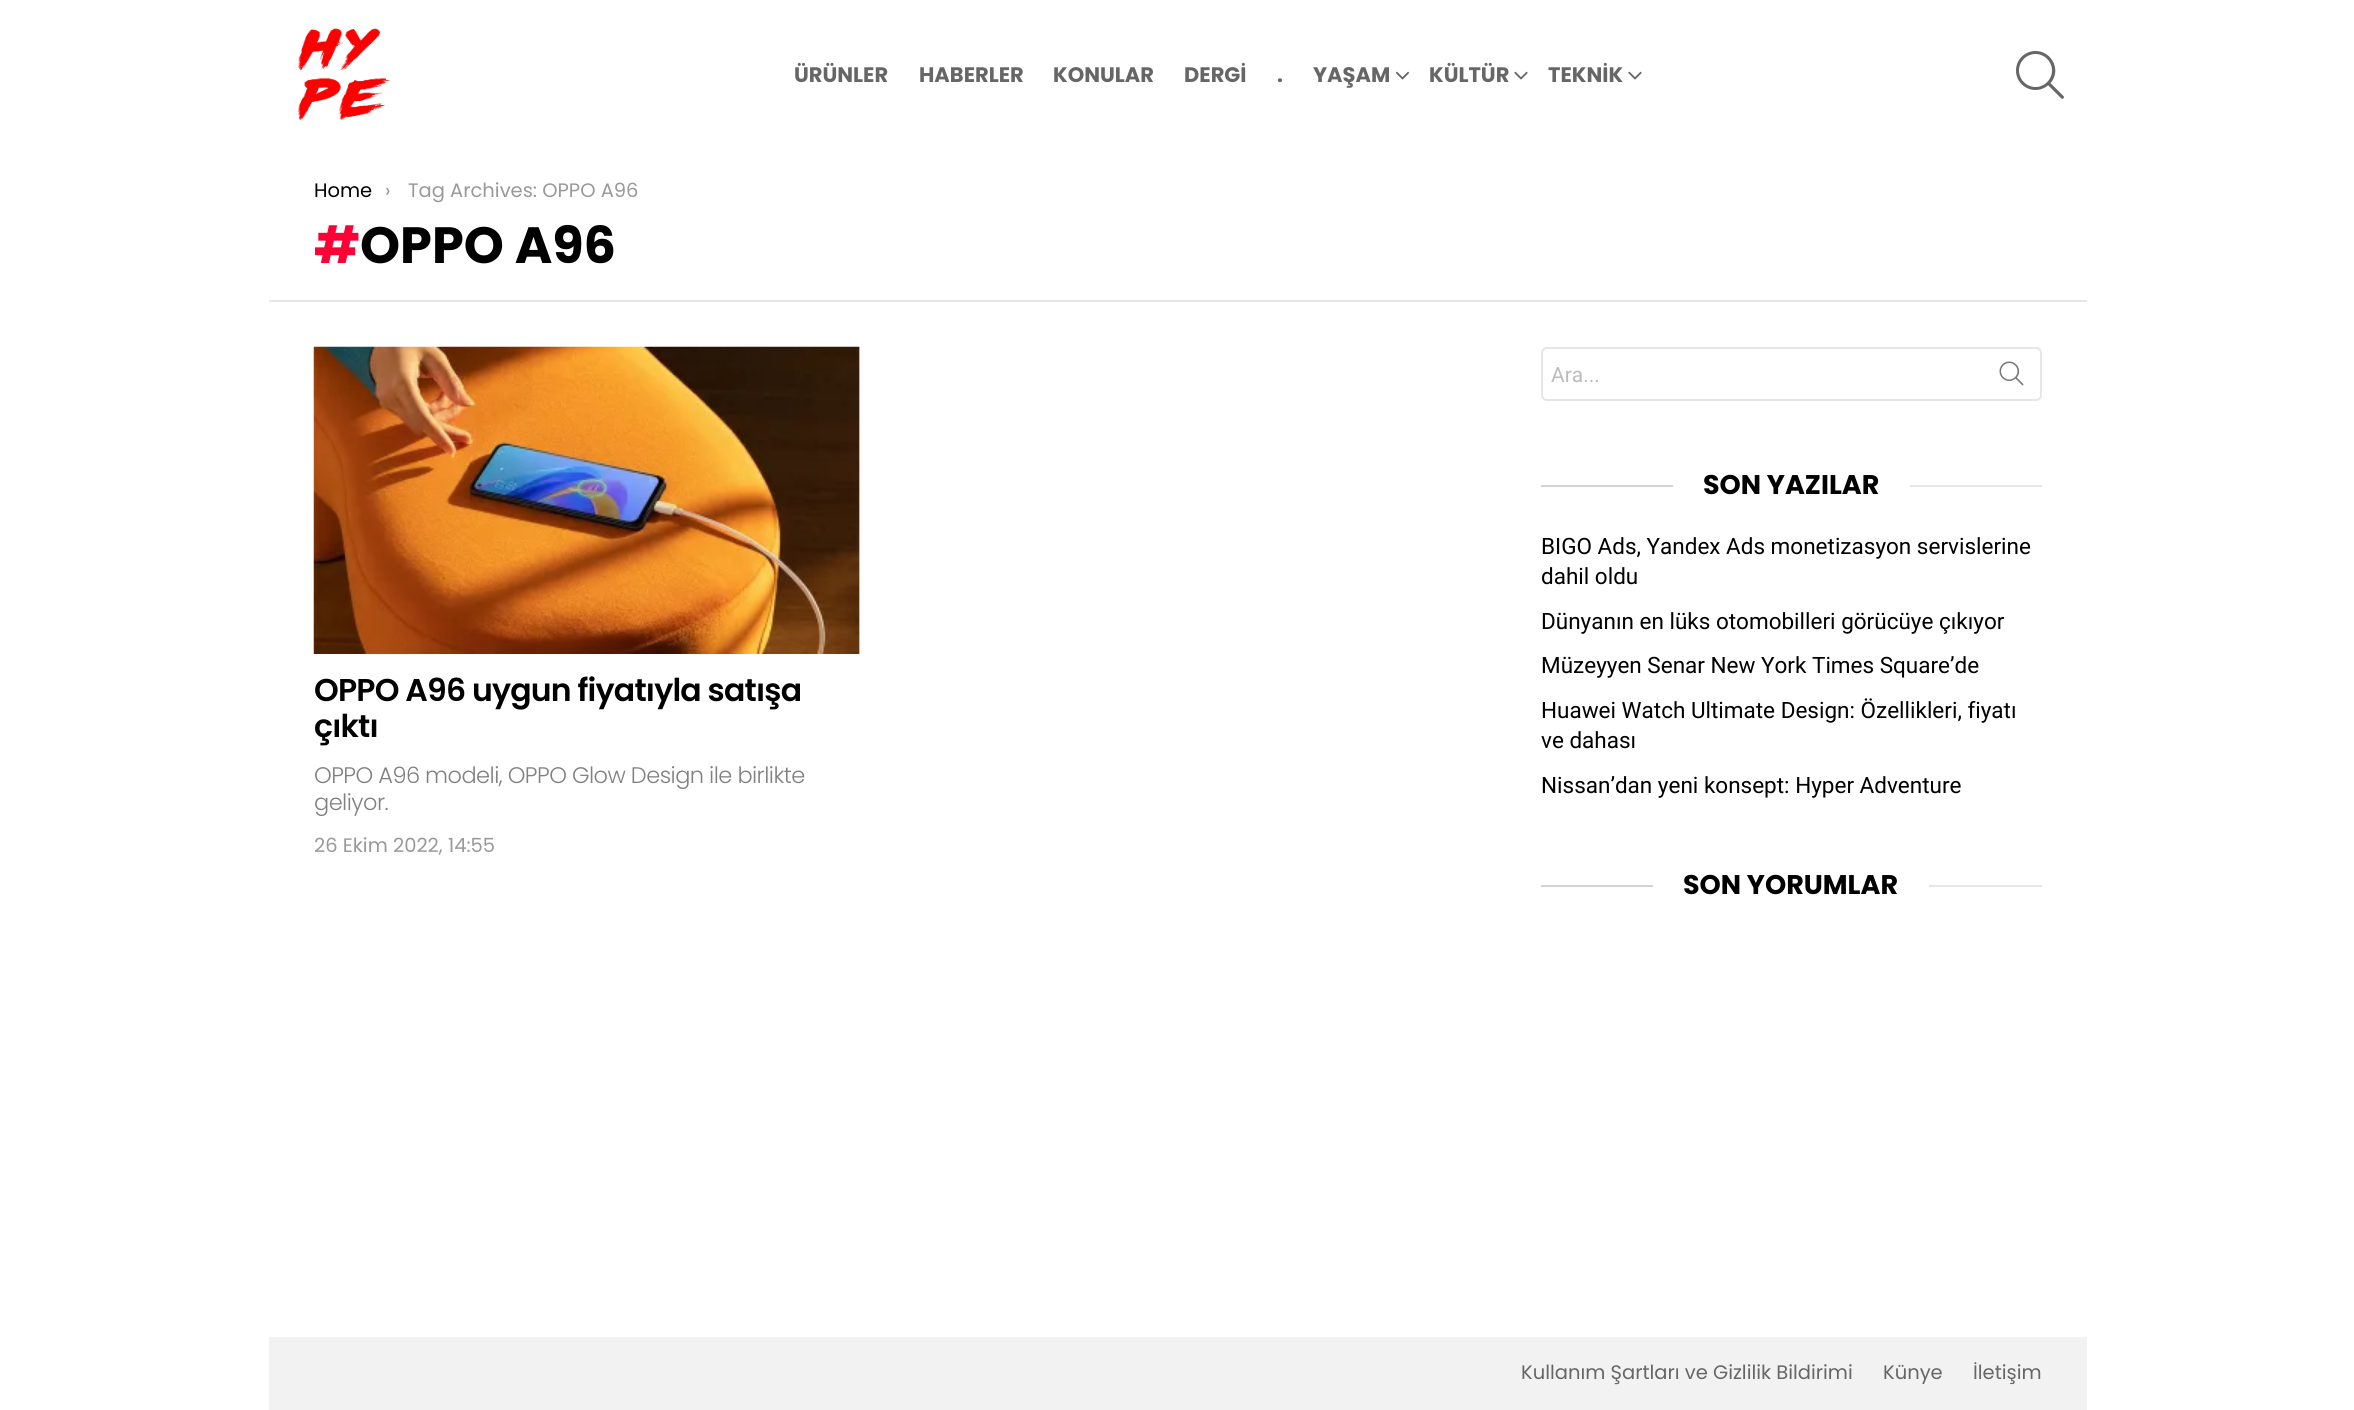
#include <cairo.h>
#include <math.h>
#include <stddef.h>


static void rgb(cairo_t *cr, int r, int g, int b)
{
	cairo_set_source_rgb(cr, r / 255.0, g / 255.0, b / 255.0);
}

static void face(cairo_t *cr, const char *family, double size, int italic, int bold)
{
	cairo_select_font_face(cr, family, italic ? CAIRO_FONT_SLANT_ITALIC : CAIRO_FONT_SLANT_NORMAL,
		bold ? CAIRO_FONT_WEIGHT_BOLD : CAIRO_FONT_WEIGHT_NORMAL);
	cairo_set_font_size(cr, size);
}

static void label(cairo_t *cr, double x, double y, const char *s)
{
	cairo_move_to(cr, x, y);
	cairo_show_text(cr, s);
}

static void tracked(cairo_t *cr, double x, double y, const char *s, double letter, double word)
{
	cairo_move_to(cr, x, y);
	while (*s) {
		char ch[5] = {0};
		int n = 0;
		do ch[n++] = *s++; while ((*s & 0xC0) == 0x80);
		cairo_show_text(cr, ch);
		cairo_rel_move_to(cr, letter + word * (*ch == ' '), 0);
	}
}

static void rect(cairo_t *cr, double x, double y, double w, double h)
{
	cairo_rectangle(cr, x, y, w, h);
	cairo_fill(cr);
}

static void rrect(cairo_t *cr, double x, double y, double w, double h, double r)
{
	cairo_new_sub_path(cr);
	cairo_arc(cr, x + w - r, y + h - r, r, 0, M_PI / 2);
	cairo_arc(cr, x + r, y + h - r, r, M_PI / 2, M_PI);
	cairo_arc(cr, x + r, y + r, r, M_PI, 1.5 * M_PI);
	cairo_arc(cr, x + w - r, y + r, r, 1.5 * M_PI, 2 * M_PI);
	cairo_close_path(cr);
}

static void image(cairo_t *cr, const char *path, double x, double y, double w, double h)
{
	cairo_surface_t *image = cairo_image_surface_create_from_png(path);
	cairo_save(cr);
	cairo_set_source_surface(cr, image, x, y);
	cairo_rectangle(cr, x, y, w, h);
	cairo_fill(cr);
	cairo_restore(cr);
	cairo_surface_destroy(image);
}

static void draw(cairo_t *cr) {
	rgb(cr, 255, 255, 255);
	cairo_paint(cr);
	image(cr, "image0.png", 297, 28, 94, 93);
	face(cr, "Poppins", 21, 0, 1);
	rgb(cr, 102, 102, 102);
	label(cr, 794, 82, "ÜRÜNLER");
	label(cr, 919, 82, "HABERLER");
	label(cr, 1053, 82, "KONULAR");
	label(cr, 1184, 82, "DERGİ");
	label(cr, 1277, 82, ".");
	label(cr, 1313, 82, "YAŞAM");
	image(cr, "image1.png", 1395, 71, 15, 9);
	label(cr, 1429, 82, "KÜLTÜR");
	image(cr, "image2.png", 1514, 71, 14, 9);
	label(cr, 1548, 82, "TEKNİK");
	image(cr, "image2.png", 1628, 71, 14, 9);
	image(cr, "image3.png", 2016, 51, 48, 48);
	face(cr, "Poppins", 19.5, 0, 0);
	rgb(cr, 0, 0, 0);
	label(cr, 314, 197, "Home");
	rgb(cr, 153, 153, 153);
	label(cr, 385, 197, "›");
	label(cr, 408, 197, "Tag Archives: OPPO A96");
	face(cr, "Poppins", 51, 0, 1);
	rgb(cr, 255, 0, 54);
	label(cr, 314, 263, "#");
	rgb(cr, 0, 0, 0);
	label(cr, 360, 263, "OPPO A96");
	rgb(cr, 230, 230, 230);
	rect(cr, 269, 300, 1818, 2);
	rect(cr, 859, 347, 1, 307);
	image(cr, "image4.png", 313, 346, 547, 308);
	face(cr, "Poppins SemiBold", 31.5, 0, 0);
	rgb(cr, 0, 0, 0);
	tracked(cr, 314, 701, "OPPO A96 uygun fiyatıyla satışa", -0.8, 0);
	tracked(cr, 314, 737, "çıktı", -0.8, 0);
	face(cr, "Poppins Light", 22.5, 0, 0);
	rgb(cr, 128, 128, 128);
	tracked(cr, 314, 783, "OPPO A96 modeli, OPPO Glow Design ile birlikte", -0.55, 0);
	tracked(cr, 314, 810, "geliyor.", -0.55, 0);
	face(cr, "Poppins", 19.5, 0, 0);
	rgb(cr, 153, 153, 153);
	label(cr, 314, 852, "26 Ekim 2022, 14:55");
	rrect(cr, 1542, 348, 499, 52, 5);
	rgb(cr, 230, 230, 230);
	cairo_stroke(cr);
	face(cr, "Roboto", 21, 0, 0);
	rgb(cr, 188, 188, 188);
	label(cr, 1551, 382, "Ara...");
	image(cr, "image5.png", 1999, 361, 25, 25);
	rgb(cr, 212, 212, 212);
	rect(cr, 1541, 485, 132, 2);
	face(cr, "Poppins", 27, 0, 1);
	rgb(cr, 0, 0, 0);
	label(cr, 1703, 494, "SON YAZILAR");
	rgb(cr, 230, 230, 230);
	rect(cr, 1910, 485, 132, 2);
	face(cr, "Roboto", 22.5, 0, 0);
	rgb(cr, 0, 0, 0);
	label(cr, 1541, 554, "BIGO Ads, Yandex Ads monetizasyon servislerine");
	label(cr, 1541, 584, "dahil oldu");
	label(cr, 1541, 629, "Dünyanın en lüks otomobilleri görücüye çıkıyor");
	label(cr, 1541, 673, "Müzeyyen Senar New York Times Square’de");
	label(cr, 1541, 718, "Huawei Watch Ultimate Design: Özellikleri, fiyatı");
	label(cr, 1541, 748, "ve dahası");
	label(cr, 1541, 793, "Nissan’dan yeni konsept: Hyper Adventure");
	rgb(cr, 212, 212, 212);
	rect(cr, 1541, 885, 112, 2);
	face(cr, "Poppins", 27, 0, 1);
	rgb(cr, 0, 0, 0);
	label(cr, 1683, 894, "SON YORUMLAR");
	rgb(cr, 230, 230, 230);
	rect(cr, 1929, 885, 113, 2);
	rgb(cr, 242, 242, 242);
	rect(cr, 269, 1337, 1818, 73);
	face(cr, "Poppins", 19.5, 0, 0);
	rgb(cr, 102, 102, 102);
	label(cr, 1521, 1379, "Kullanım Şartları ve Gizlilik Bildirimi");
	label(cr, 1883, 1379, "Künye");
	label(cr, 1973, 1379, "İletişim");
}

int main(void) {
	cairo_surface_t *surface = cairo_image_surface_create(CAIRO_FORMAT_RGB24, 2354, 1410);
	cairo_t *cr = cairo_create(surface);
	cairo_font_options_t *options = cairo_font_options_create();
	cairo_font_options_set_hint_metrics(options, CAIRO_HINT_METRICS_OFF);
	cairo_font_options_set_hint_style(options, CAIRO_HINT_STYLE_NONE);
	cairo_set_font_options(cr, options);
	cairo_set_miter_limit(cr, 4);
	draw(cr);
	cairo_surface_write_to_png(surface, "render.png");
	cairo_font_options_destroy(options);
	cairo_destroy(cr);
	cairo_surface_destroy(surface);
	return 0;
}
